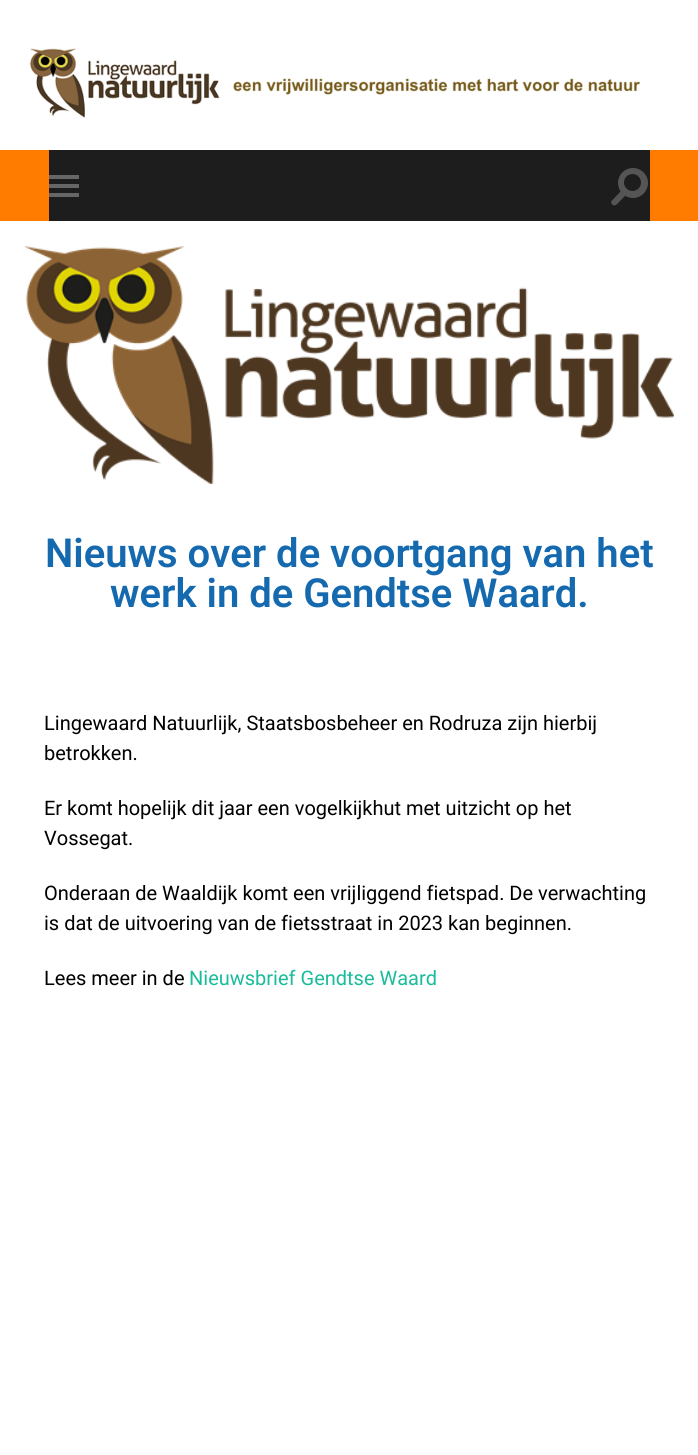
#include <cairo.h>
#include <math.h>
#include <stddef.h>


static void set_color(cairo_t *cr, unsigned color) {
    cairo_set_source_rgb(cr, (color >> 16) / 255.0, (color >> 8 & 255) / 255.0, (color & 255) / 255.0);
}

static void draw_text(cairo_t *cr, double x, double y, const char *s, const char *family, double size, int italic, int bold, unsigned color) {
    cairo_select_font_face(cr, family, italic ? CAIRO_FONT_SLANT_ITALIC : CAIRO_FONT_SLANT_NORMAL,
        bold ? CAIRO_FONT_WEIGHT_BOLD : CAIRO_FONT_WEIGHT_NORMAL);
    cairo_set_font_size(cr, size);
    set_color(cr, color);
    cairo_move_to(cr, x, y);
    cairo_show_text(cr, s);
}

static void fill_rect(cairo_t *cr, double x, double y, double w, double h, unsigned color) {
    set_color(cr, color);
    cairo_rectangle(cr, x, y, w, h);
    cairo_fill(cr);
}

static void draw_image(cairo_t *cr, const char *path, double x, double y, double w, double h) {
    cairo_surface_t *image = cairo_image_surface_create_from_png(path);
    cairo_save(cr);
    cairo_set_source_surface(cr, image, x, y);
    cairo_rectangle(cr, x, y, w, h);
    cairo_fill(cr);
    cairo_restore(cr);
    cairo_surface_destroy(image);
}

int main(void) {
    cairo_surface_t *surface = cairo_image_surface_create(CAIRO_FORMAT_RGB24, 698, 1455);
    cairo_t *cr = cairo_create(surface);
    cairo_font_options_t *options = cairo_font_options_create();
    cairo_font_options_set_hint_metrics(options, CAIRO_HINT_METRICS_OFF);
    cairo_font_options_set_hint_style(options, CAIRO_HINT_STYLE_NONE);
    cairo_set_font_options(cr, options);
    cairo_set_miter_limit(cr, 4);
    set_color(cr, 0xFFFFFF);
    cairo_paint(cr);
    draw_image(cr, "assets/img1.png", 0, 0, 698, 150);
    fill_rect(cr, 0, 150, 698, 71, 0xFF7C00);
    fill_rect(cr, 49, 150, 601, 71, 0x1D1D1D);
    fill_rect(cr, 49, 175, 30, 4, 0x666666);
    fill_rect(cr, 49, 184, 30, 4, 0x666666);
    fill_rect(cr, 49, 193, 30, 4, 0x666666);
    set_color(cr, 0x555555);
    cairo_arc(cr, 633, 183, 15, 0, 2 * M_PI);
    cairo_fill(cr);
    set_color(cr, 0x1D1D1D);
    cairo_arc(cr, 632.5, 182.5, 8.5, 0, 2 * M_PI);
    cairo_fill(cr);
    set_color(cr, 0x555555);
    cairo_new_path(cr);
    cairo_move_to(cr, 612, 200.5);
    cairo_line_to(cr, 622.5, 189.5);
    cairo_line_to(cr, 627, 194);
    cairo_line_to(cr, 620, 201);
    cairo_curve_to(cr, 617.5, 203.5, 614.5, 208, 611.5, 203.5);
    cairo_curve_to(cr, 611, 202.5, 611, 201, 612, 200.5);
    cairo_close_path(cr);
    cairo_fill(cr);
    draw_image(cr, "assets/img2.png", 25, 246, 649, 238);
    draw_text(cr, 45, 567, "Nieuws over de voortgang van het", "Roboto SemiBold", 40, 0, 0, 0x1569AE);
    draw_text(cr, 110, 607, "werk in de Gendtse Waard.", "Roboto SemiBold", 40, 0, 0, 0x1569AE);
    draw_text(cr, 44, 730, "Lingewaard Natuurlijk, Staatsbosbeheer en Rodruza zijn hierbij", "Roboto", 20, 0, 0, 0x000000);
    draw_text(cr, 44, 760, "betrokken.", "Roboto", 20, 0, 0, 0x000000);
    draw_text(cr, 44, 815, "Er komt hopelijk dit jaar een vogelkijkhut met uitzicht op het", "Roboto", 20, 0, 0, 0x000000);
    draw_text(cr, 44, 845, "Vossegat.", "Roboto", 20, 0, 0, 0x000000);
    draw_text(cr, 44, 900, "Onderaan de Waaldijk komt een vrijliggend fietspad. De verwachting", "Roboto", 20, 0, 0, 0x000000);
    draw_text(cr, 44, 930, "is dat de uitvoering van de fietsstraat in 2023 kan beginnen.", "Roboto", 20, 0, 0, 0x000000);
    draw_text(cr, 44, 985, "Lees meer in de", "Roboto", 20, 0, 0, 0x000000);
    draw_text(cr, 189, 985, "Nieuwsbrief Gendtse Waard", "Roboto", 20, 0, 0, 0x1ABC9C);
    cairo_surface_write_to_png(surface, "output.png");
    cairo_font_options_destroy(options);
    cairo_destroy(cr);
    cairo_surface_destroy(surface);
    return 0;
}
